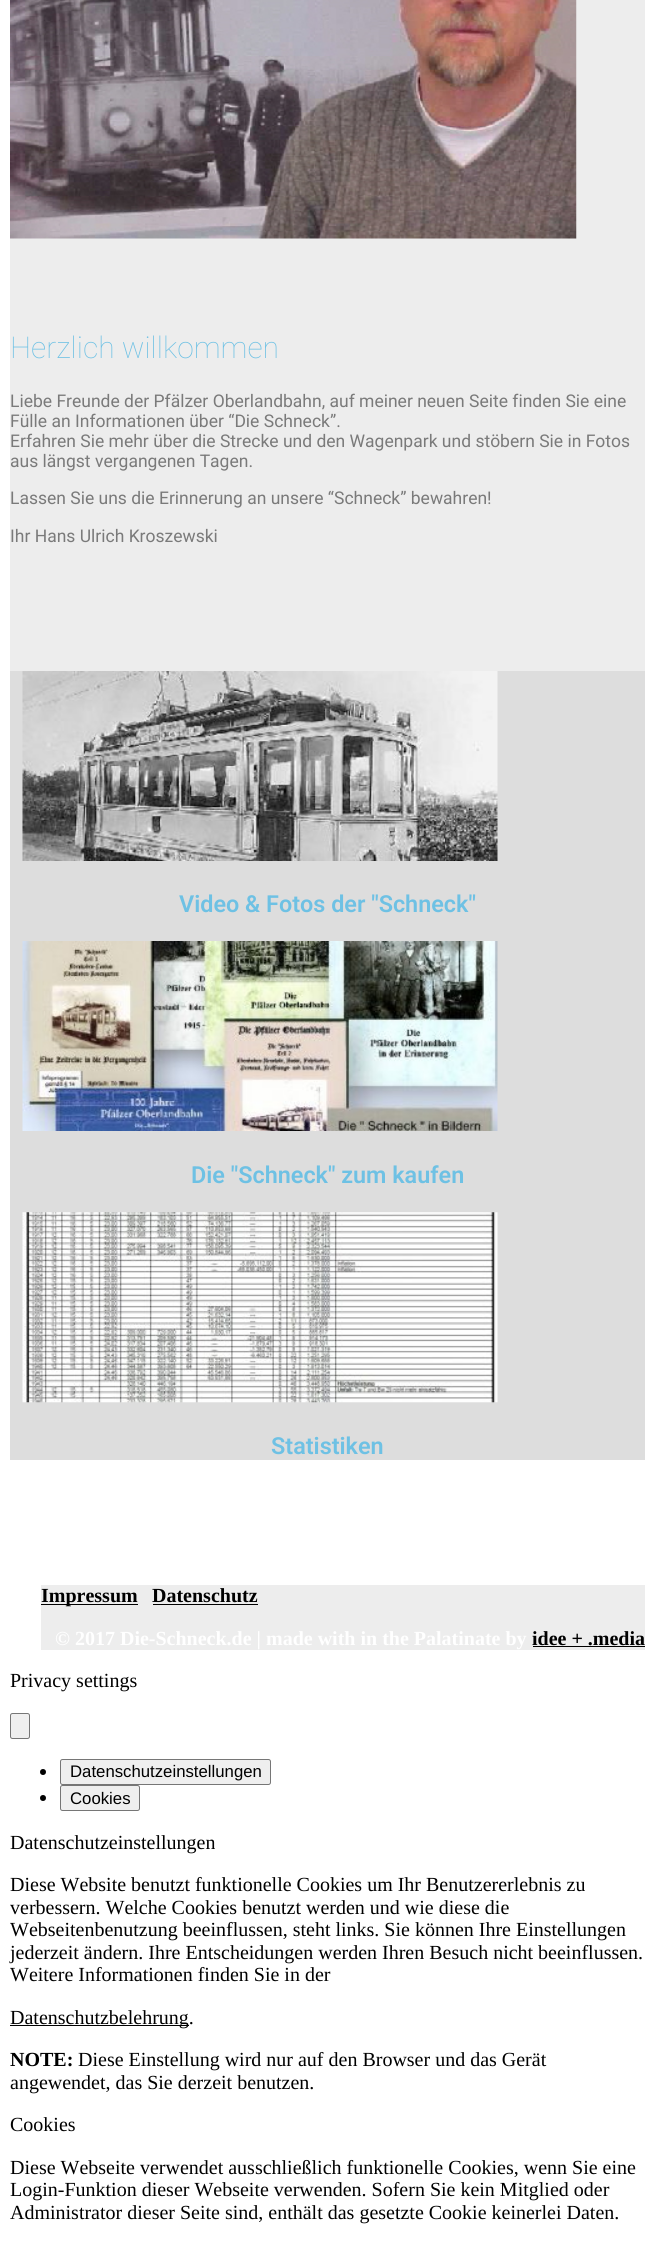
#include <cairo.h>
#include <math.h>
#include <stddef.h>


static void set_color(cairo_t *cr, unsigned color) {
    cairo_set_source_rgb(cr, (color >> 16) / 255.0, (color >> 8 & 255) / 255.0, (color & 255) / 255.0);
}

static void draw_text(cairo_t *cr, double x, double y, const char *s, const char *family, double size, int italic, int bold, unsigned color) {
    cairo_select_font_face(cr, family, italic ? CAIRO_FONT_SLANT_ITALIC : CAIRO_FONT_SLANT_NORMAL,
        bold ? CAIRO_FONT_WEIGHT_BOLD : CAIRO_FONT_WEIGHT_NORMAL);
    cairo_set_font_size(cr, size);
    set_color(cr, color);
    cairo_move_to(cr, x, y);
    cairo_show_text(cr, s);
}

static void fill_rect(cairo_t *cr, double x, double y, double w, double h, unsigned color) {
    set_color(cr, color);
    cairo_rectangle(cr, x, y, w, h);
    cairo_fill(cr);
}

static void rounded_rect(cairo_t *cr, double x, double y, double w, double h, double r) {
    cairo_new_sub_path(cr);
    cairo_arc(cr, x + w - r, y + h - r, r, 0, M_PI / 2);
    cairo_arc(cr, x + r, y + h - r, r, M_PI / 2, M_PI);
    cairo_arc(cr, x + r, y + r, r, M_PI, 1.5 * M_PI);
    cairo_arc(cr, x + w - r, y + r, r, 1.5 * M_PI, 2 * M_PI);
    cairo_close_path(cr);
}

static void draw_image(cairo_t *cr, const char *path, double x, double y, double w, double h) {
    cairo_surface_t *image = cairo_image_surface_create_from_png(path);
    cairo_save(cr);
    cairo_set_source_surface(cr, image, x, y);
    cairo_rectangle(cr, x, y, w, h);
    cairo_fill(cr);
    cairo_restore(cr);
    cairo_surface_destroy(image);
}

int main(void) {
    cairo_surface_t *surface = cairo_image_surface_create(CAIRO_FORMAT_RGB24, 655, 2260);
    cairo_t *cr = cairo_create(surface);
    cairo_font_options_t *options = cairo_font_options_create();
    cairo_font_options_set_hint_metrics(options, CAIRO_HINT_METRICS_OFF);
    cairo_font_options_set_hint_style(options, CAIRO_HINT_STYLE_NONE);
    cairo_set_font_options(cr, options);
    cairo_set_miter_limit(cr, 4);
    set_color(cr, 0xFFFFFF);
    cairo_paint(cr);
    fill_rect(cr, 10, 0, 635, 671, 0xEDEDED);
    draw_image(cr, "assets/img1.png", 10, 0, 567, 239);
    draw_text(cr, 10, 358, "Herzlich willkommen", "Roboto Thin", 30, 0, 0, 0x6EC1E4);
    draw_text(cr, 10, 407, "Liebe Freunde der Pfälzer Oberlandbahn, auf meiner neuen Seite finden Sie eine", "Roboto", 17.5, 0, 0, 0x7A7A7A);
    draw_text(cr, 10, 427, "Fülle an Informationen über “Die Schneck”.", "Roboto", 17.5, 0, 0, 0x7A7A7A);
    draw_text(cr, 10, 447, "Erfahren Sie mehr über die Strecke und den Wagenpark und stöbern Sie in Fotos", "Roboto", 17.5, 0, 0, 0x7A7A7A);
    draw_text(cr, 10, 467, "aus längst vergangenen Tagen.", "Roboto", 17.5, 0, 0, 0x7A7A7A);
    draw_text(cr, 10, 504, "Lassen Sie uns die Erinnerung an unsere “Schneck” bewahren!", "Roboto", 17.5, 0, 0, 0x7A7A7A);
    draw_text(cr, 10, 542, "Ihr Hans Ulrich Kroszewski", "Roboto", 17.5, 0, 0, 0x7A7A7A);
    fill_rect(cr, 10, 671, 635, 789, 0xDDDDDD);
    draw_image(cr, "assets/img2.png", 22, 671, 476, 190);
    draw_text(cr, 179, 912, "Video & Fotos der \"Schneck\"", "Roboto SemiBold", 23.4, 0, 0, 0x6EC1E4);
    draw_image(cr, "assets/img3.png", 22, 941, 476, 190);
    draw_text(cr, 191, 1183, "Die \"Schneck\" zum kaufen", "Roboto SemiBold", 23.4, 0, 0, 0x6EC1E4);
    draw_image(cr, "assets/img4.png", 22, 1212, 476, 191);
    draw_text(cr, 271, 1454, "Statistiken", "Roboto SemiBold", 23.4, 0, 0, 0x6EC1E4);
    fill_rect(cr, 41, 1585, 604, 65, 0xEDEDED);
    fill_rect(cr, 41, 1604, 97, 1, 0x000000);
    draw_text(cr, 41, 1602, "Impressum", "Liberation Serif", 20, 0, 1, 0x000000);
    draw_text(cr, 152, 1602, "Datenschutz", "Liberation Serif", 20, 0, 1, 0x000000);
    fill_rect(cr, 153, 1604, 105, 1, 0x000000);
    draw_text(cr, 55, 1645, "© 2017 Die-Schneck.de | made with in the Palatinate by", "Liberation Serif", 20, 0, 1, 0xFFFFFF);
    draw_text(cr, 532, 1645, "idee + .media", "Liberation Serif", 20, 0, 1, 0x000000);
    fill_rect(cr, 533, 1646, 112, 1, 0x000000);
    draw_text(cr, 10, 1687, "Privacy settings", "Liberation Serif", 20, 0, 0, 0x000000);
    set_color(cr, 0xEFEFEF);
    rounded_rect(cr, 10.5, 1713.5, 19, 25, 2);
    cairo_fill_preserve(cr);
    set_color(cr, 0x767676);
    cairo_set_line_width(cr, 1);
    cairo_stroke(cr);
    set_color(cr, 0x000000);
    cairo_arc(cr, 43, 1772, 3, 0, 2 * M_PI);
    cairo_fill(cr);
    set_color(cr, 0xEFEFEF);
    rounded_rect(cr, 60.5, 1759.5, 210, 25, 2);
    cairo_fill_preserve(cr);
    set_color(cr, 0x767676);
    cairo_stroke(cr);
    draw_text(cr, 70, 1777, "Datenschutzeinstellungen", "Liberation Sans", 16.75, 0, 0, 0x000000);
    cairo_new_path(cr);
    cairo_arc(cr, 43, 1798, 3, 0, 2 * M_PI);
    cairo_fill(cr);
    set_color(cr, 0xEFEFEF);
    rounded_rect(cr, 60.5, 1785.5, 79, 25, 2);
    cairo_fill_preserve(cr);
    set_color(cr, 0x767676);
    cairo_stroke(cr);
    draw_text(cr, 70, 1804, "Cookies", "Liberation Sans", 16.75, 0, 0, 0x000000);
    draw_text(cr, 10, 1849, "Datenschutzeinstellungen", "Liberation Serif", 20, 0, 0, 0x000000);
    draw_text(cr, 10, 1891, "Diese Website benutzt funktionelle Cookies um Ihr Benutzererlebnis zu", "Liberation Serif", 20, 0, 0, 0x000000);
    draw_text(cr, 10, 1914, "verbessern. Welche Cookies benutzt werden und wie diese die", "Liberation Serif", 20, 0, 0, 0x000000);
    draw_text(cr, 10, 1936, "Webseitenbenutzung beeinflussen, steht links. Sie können Ihre Einstellungen", "Liberation Serif", 20, 0, 0, 0x000000);
    draw_text(cr, 10, 1959, "jederzeit ändern. Ihre Entscheidungen werden Ihren Besuch nicht beeinflussen.", "Liberation Serif", 20, 0, 0, 0x000000);
    draw_text(cr, 10, 1981, "Weitere Informationen finden Sie in der", "Liberation Serif", 20, 0, 0, 0x000000);
    fill_rect(cr, 10, 2025, 179, 1, 0x000000);
    draw_text(cr, 10, 2024, "Datenschutzbelehrung.", "Liberation Serif", 20, 0, 0, 0x000000);
    draw_text(cr, 10, 2066, "NOTE:", "Liberation Serif", 20, 0, 1, 0x000000);
    draw_text(cr, 78, 2066, "Diese Einstellung wird nur auf den Browser und das Gerät", "Liberation Serif", 20, 0, 0, 0x000000);
    draw_text(cr, 10, 2089, "angewendet, das Sie derzeit benutzen.", "Liberation Serif", 20, 0, 0, 0x000000);
    draw_text(cr, 10, 2131, "Cookies", "Liberation Serif", 20, 0, 0, 0x000000);
    draw_text(cr, 10, 2174, "Diese Webseite verwendet ausschließlich funktionelle Cookies, wenn Sie eine", "Liberation Serif", 20, 0, 0, 0x000000);
    draw_text(cr, 10, 2196, "Login-Funktion dieser Webseite verwenden. Sofern Sie kein Mitglied oder", "Liberation Serif", 20, 0, 0, 0x000000);
    draw_text(cr, 10, 2219, "Administrator dieser Seite sind, enthält das gesetzte Cookie keinerlei Daten.", "Liberation Serif", 20, 0, 0, 0x000000);
    cairo_surface_write_to_png(surface, "output.png");
    cairo_font_options_destroy(options);
    cairo_destroy(cr);
    cairo_surface_destroy(surface);
    return 0;
}
